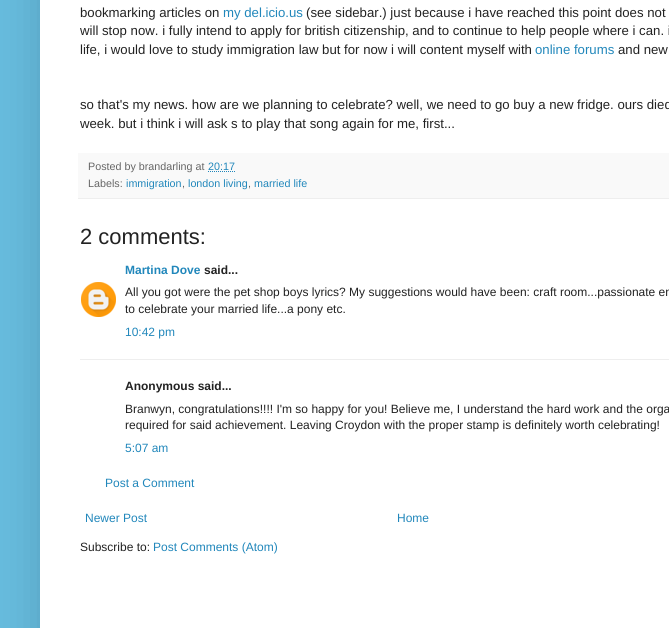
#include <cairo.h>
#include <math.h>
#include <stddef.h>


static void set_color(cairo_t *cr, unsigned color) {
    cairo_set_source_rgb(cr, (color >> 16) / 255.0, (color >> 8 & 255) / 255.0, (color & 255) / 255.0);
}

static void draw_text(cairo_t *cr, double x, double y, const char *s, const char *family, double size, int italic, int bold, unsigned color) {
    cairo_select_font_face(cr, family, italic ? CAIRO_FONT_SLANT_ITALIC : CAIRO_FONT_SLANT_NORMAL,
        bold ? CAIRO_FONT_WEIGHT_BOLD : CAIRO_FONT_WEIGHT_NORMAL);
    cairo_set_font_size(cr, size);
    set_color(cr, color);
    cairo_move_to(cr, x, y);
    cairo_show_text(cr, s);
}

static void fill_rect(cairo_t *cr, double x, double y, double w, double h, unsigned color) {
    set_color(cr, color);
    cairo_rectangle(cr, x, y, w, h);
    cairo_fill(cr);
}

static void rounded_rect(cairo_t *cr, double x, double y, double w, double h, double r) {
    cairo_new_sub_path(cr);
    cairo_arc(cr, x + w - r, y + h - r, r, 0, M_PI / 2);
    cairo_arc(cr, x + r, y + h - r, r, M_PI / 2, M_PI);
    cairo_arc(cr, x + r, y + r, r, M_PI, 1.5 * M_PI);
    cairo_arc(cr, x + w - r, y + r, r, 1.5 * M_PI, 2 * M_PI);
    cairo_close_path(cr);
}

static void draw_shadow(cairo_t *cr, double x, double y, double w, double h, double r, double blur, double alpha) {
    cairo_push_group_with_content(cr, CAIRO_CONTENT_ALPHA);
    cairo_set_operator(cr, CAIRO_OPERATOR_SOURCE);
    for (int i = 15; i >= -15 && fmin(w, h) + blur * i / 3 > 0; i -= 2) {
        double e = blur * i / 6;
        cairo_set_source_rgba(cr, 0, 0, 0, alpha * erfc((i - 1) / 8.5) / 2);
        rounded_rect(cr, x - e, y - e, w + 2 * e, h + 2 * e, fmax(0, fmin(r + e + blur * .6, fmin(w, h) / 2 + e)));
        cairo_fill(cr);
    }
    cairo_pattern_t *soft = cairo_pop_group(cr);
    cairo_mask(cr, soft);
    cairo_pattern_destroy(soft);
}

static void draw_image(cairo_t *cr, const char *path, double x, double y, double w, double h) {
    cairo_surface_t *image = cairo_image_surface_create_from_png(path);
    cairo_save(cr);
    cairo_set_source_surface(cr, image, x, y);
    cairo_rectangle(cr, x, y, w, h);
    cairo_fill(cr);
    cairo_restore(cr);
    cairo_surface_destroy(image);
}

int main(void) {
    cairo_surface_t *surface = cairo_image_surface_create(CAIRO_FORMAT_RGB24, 669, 628);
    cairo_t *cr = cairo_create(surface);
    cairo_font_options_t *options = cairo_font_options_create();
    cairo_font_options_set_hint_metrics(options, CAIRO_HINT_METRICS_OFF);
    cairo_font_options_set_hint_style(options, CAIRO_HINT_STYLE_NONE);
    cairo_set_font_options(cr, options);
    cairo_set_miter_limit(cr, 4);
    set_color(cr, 0x66BBDD);
    cairo_paint(cr);
    set_color(cr, 0x000000);
    draw_shadow(cr, 40, -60, 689, 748, 0, 20, 0.15);
    fill_rect(cr, 40, 0, 629, 628, 0xFFFFFF);
    draw_text(cr, 80, 17, "bookmarking articles on", "Liberation Sans", 13.2, 0, 0, 0x222222);
    draw_text(cr, 223, 17, "my del.icio.us", "Liberation Sans", 13.2, 0, 0, 0x2187BB);
    draw_text(cr, 306, 17, "(see sidebar.) just because i have reached this point does not", "Liberation Sans", 13.2, 0, 0, 0x222222);
    draw_text(cr, 80, 35, "will stop now. i fully intend to apply for british citizenship, and to continue to help people where i can. i", "Liberation Sans", 13.2, 0, 0, 0x222222);
    draw_text(cr, 80, 54, "life, i would love to study immigration law but for now i will content myself with", "Liberation Sans", 13.2, 0, 0, 0x222222);
    draw_text(cr, 535, 54, "online forums", "Liberation Sans", 13.2, 0, 0, 0x2187BB);
    draw_text(cr, 618, 54, "and new", "Liberation Sans", 13.2, 0, 0, 0x222222);
    draw_text(cr, 80, 109, "so that's my news. how are we planning to celebrate? well, we need to go buy a new fridge. ours died", "Liberation Sans", 13.2, 0, 0, 0x222222);
    draw_text(cr, 80, 128, "week. but i think i will ask s to play that song again for me, first...", "Liberation Sans", 13.2, 0, 0, 0x222222);
    fill_rect(cr, 78, 153, 591, 45, 0xF9F9F9);
    fill_rect(cr, 78, 198, 591, 1, 0xEEEEEE);
    draw_text(cr, 88, 170, "Posted by brandarling at", "Liberation Sans", 10.75, 0, 0, 0x666666);
    draw_text(cr, 208, 170, "20:17", "Liberation Sans", 10.75, 0, 0, 0x2187BB);
    cairo_new_path(cr);
    cairo_move_to(cr, 208, 171.5);
    cairo_line_to(cr, 235, 171.5);
    cairo_set_line_width(cr, 1);
    cairo_set_dash(cr, (double[]){1, 1}, 2, 0);
    cairo_stroke(cr);
    draw_text(cr, 88, 187, "Labels:", "Liberation Sans", 10.75, 0, 0, 0x666666);
    draw_text(cr, 126, 187, "immigration", "Liberation Sans", 10.75, 0, 0, 0x2187BB);
    draw_text(cr, 182, 187, ",", "Liberation Sans", 10.75, 0, 0, 0x666666);
    draw_text(cr, 188, 187, "london living", "Liberation Sans", 10.75, 0, 0, 0x2187BB);
    draw_text(cr, 248, 187, ",", "Liberation Sans", 10.75, 0, 0, 0x666666);
    draw_text(cr, 254, 187, "married life", "Liberation Sans", 10.75, 0, 0, 0x2187BB);
    draw_text(cr, 80, 244, "2 comments:", "Liberation Sans", 22, 0, 0, 0x222222);
    draw_text(cr, 125, 274, "Martina Dove", "Liberation Sans", 12, 0, 1, 0x2187BB);
    draw_text(cr, 204, 274, "said...", "Liberation Sans", 12, 0, 1, 0x222222);
    draw_image(cr, "assets/img1.png", 81, 282, 35, 35);
    draw_text(cr, 125, 296, "All you got were the pet shop boys lyrics? My suggestions would have been: craft room...passionate en", "Liberation Sans", 12, 0, 0, 0x222222);
    draw_text(cr, 125, 313, "to celebrate your married life...a pony etc.", "Liberation Sans", 12, 0, 0, 0x222222);
    draw_text(cr, 125, 336, "10:42 pm", "Liberation Sans", 12, 0, 0, 0x2187BB);
    fill_rect(cr, 80, 359, 589, 1, 0xEEEEEE);
    draw_text(cr, 125, 390, "Anonymous said...", "Liberation Sans", 12, 0, 1, 0x222222);
    draw_text(cr, 125, 413, "Branwyn, congratulations!!!! I'm so happy for you! Believe me, I understand the hard work and the orga", "Liberation Sans", 12, 0, 0, 0x222222);
    draw_text(cr, 125, 429, "required for said achievement. Leaving Croydon with the proper stamp is definitely worth celebrating!", "Liberation Sans", 12, 0, 0, 0x222222);
    draw_text(cr, 125, 452, "5:07 am", "Liberation Sans", 12, 0, 0, 0x2187BB);
    draw_text(cr, 105, 487, "Post a Comment", "Liberation Sans", 12, 0, 0, 0x2187BB);
    draw_text(cr, 85, 522, "Newer Post", "Liberation Sans", 12, 0, 0, 0x2187BB);
    draw_text(cr, 397, 522, "Home", "Liberation Sans", 12, 0, 0, 0x2187BB);
    draw_text(cr, 80, 551, "Subscribe to:", "Liberation Sans", 12, 0, 0, 0x222222);
    draw_text(cr, 153, 551, "Post Comments (Atom)", "Liberation Sans", 12, 0, 0, 0x2187BB);
    cairo_surface_write_to_png(surface, "output.png");
    cairo_font_options_destroy(options);
    cairo_destroy(cr);
    cairo_surface_destroy(surface);
    return 0;
}
